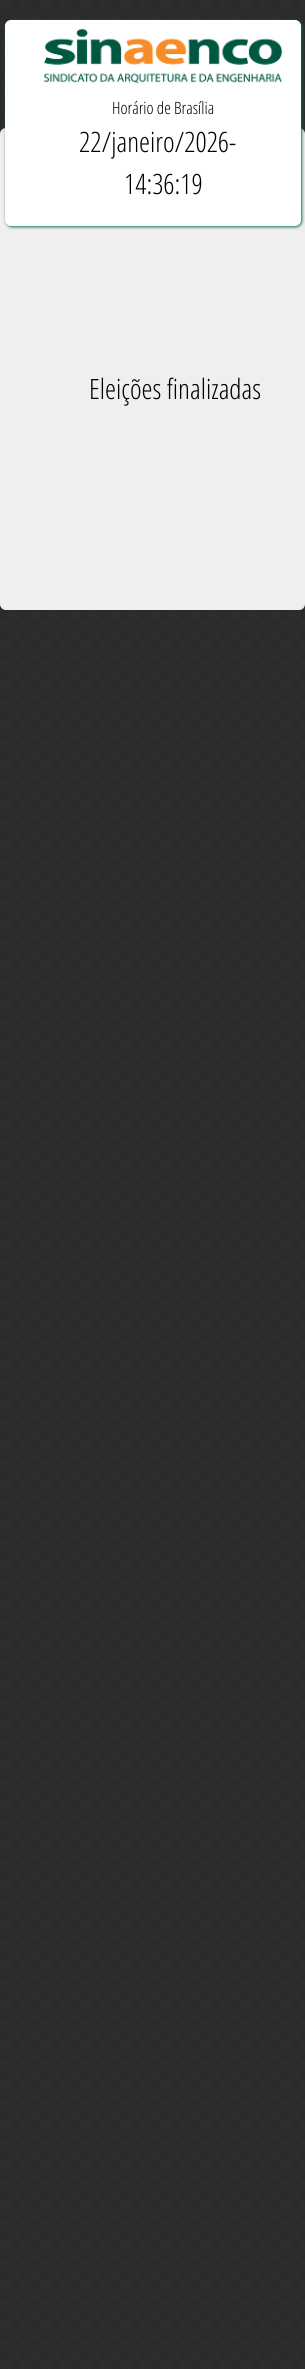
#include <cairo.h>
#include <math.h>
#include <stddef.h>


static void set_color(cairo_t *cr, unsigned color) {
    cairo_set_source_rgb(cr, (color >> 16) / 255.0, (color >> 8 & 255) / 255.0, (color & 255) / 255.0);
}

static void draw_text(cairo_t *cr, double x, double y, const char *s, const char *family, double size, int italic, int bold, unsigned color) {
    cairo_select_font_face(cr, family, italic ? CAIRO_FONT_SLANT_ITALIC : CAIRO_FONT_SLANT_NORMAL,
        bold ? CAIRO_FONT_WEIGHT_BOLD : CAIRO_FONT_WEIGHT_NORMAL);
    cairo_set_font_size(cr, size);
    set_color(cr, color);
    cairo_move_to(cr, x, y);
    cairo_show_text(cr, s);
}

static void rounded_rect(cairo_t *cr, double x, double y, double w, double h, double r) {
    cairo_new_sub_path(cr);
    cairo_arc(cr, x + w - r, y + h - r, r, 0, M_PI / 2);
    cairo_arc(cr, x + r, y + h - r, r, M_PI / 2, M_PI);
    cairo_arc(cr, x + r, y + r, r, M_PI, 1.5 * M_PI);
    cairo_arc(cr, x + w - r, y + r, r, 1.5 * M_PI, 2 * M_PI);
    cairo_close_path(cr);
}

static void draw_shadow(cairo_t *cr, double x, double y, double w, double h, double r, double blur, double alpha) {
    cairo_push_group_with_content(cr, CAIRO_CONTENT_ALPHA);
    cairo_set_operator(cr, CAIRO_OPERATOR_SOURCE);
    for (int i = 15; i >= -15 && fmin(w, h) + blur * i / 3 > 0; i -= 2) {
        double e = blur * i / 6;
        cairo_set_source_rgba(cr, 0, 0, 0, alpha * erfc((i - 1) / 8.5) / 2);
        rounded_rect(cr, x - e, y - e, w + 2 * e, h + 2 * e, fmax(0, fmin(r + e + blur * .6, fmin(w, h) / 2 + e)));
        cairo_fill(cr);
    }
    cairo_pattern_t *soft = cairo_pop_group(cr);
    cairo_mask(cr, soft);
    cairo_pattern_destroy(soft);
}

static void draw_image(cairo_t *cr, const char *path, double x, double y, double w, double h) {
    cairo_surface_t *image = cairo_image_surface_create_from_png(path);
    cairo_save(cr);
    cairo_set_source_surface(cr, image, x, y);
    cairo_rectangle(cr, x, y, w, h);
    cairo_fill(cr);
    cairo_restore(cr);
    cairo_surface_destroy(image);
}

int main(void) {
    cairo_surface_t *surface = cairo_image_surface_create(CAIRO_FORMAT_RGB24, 305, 2369);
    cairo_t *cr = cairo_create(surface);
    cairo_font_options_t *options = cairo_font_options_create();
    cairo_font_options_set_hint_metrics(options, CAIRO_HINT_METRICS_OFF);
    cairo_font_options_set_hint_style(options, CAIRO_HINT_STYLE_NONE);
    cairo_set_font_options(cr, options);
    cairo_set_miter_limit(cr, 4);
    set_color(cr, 0xFFFFFF);
    cairo_paint(cr);
    draw_image(cr, "assets/img1.png", 0, 0, 305, 2369);
    set_color(cr, 0xF1EEEE);
    rounded_rect(cr, 0, 128, 305, 482, 6);
    cairo_fill(cr);
    set_color(cr, 0x076F54);
    draw_shadow(cr, 6, 21, 296, 206, 6, 1.5, 1);
    set_color(cr, 0xFFFFFF);
    rounded_rect(cr, 5.5, 20.5, 295, 205, 5.5);
    cairo_fill_preserve(cr);
    cairo_set_line_width(cr, 1);
    cairo_stroke(cr);
    draw_image(cr, "assets/img2.png", 44, 28, 239, 56);
    draw_text(cr, 112, 114, "Horário de Brasília", "Open Sans Light", 17, 0, 0, 0x000000);
    draw_text(cr, 79, 152, "22/janeiro/2026-", "Open Sans Light", 28, 0, 0, 0x000000);
    draw_text(cr, 124, 194, "14:36:19", "Open Sans Light", 28, 0, 0, 0x000000);
    draw_text(cr, 89, 399, "Eleições finalizadas", "Open Sans Light", 28, 0, 0, 0x000000);
    cairo_surface_write_to_png(surface, "output.png");
    cairo_font_options_destroy(options);
    cairo_destroy(cr);
    cairo_surface_destroy(surface);
    return 0;
}
